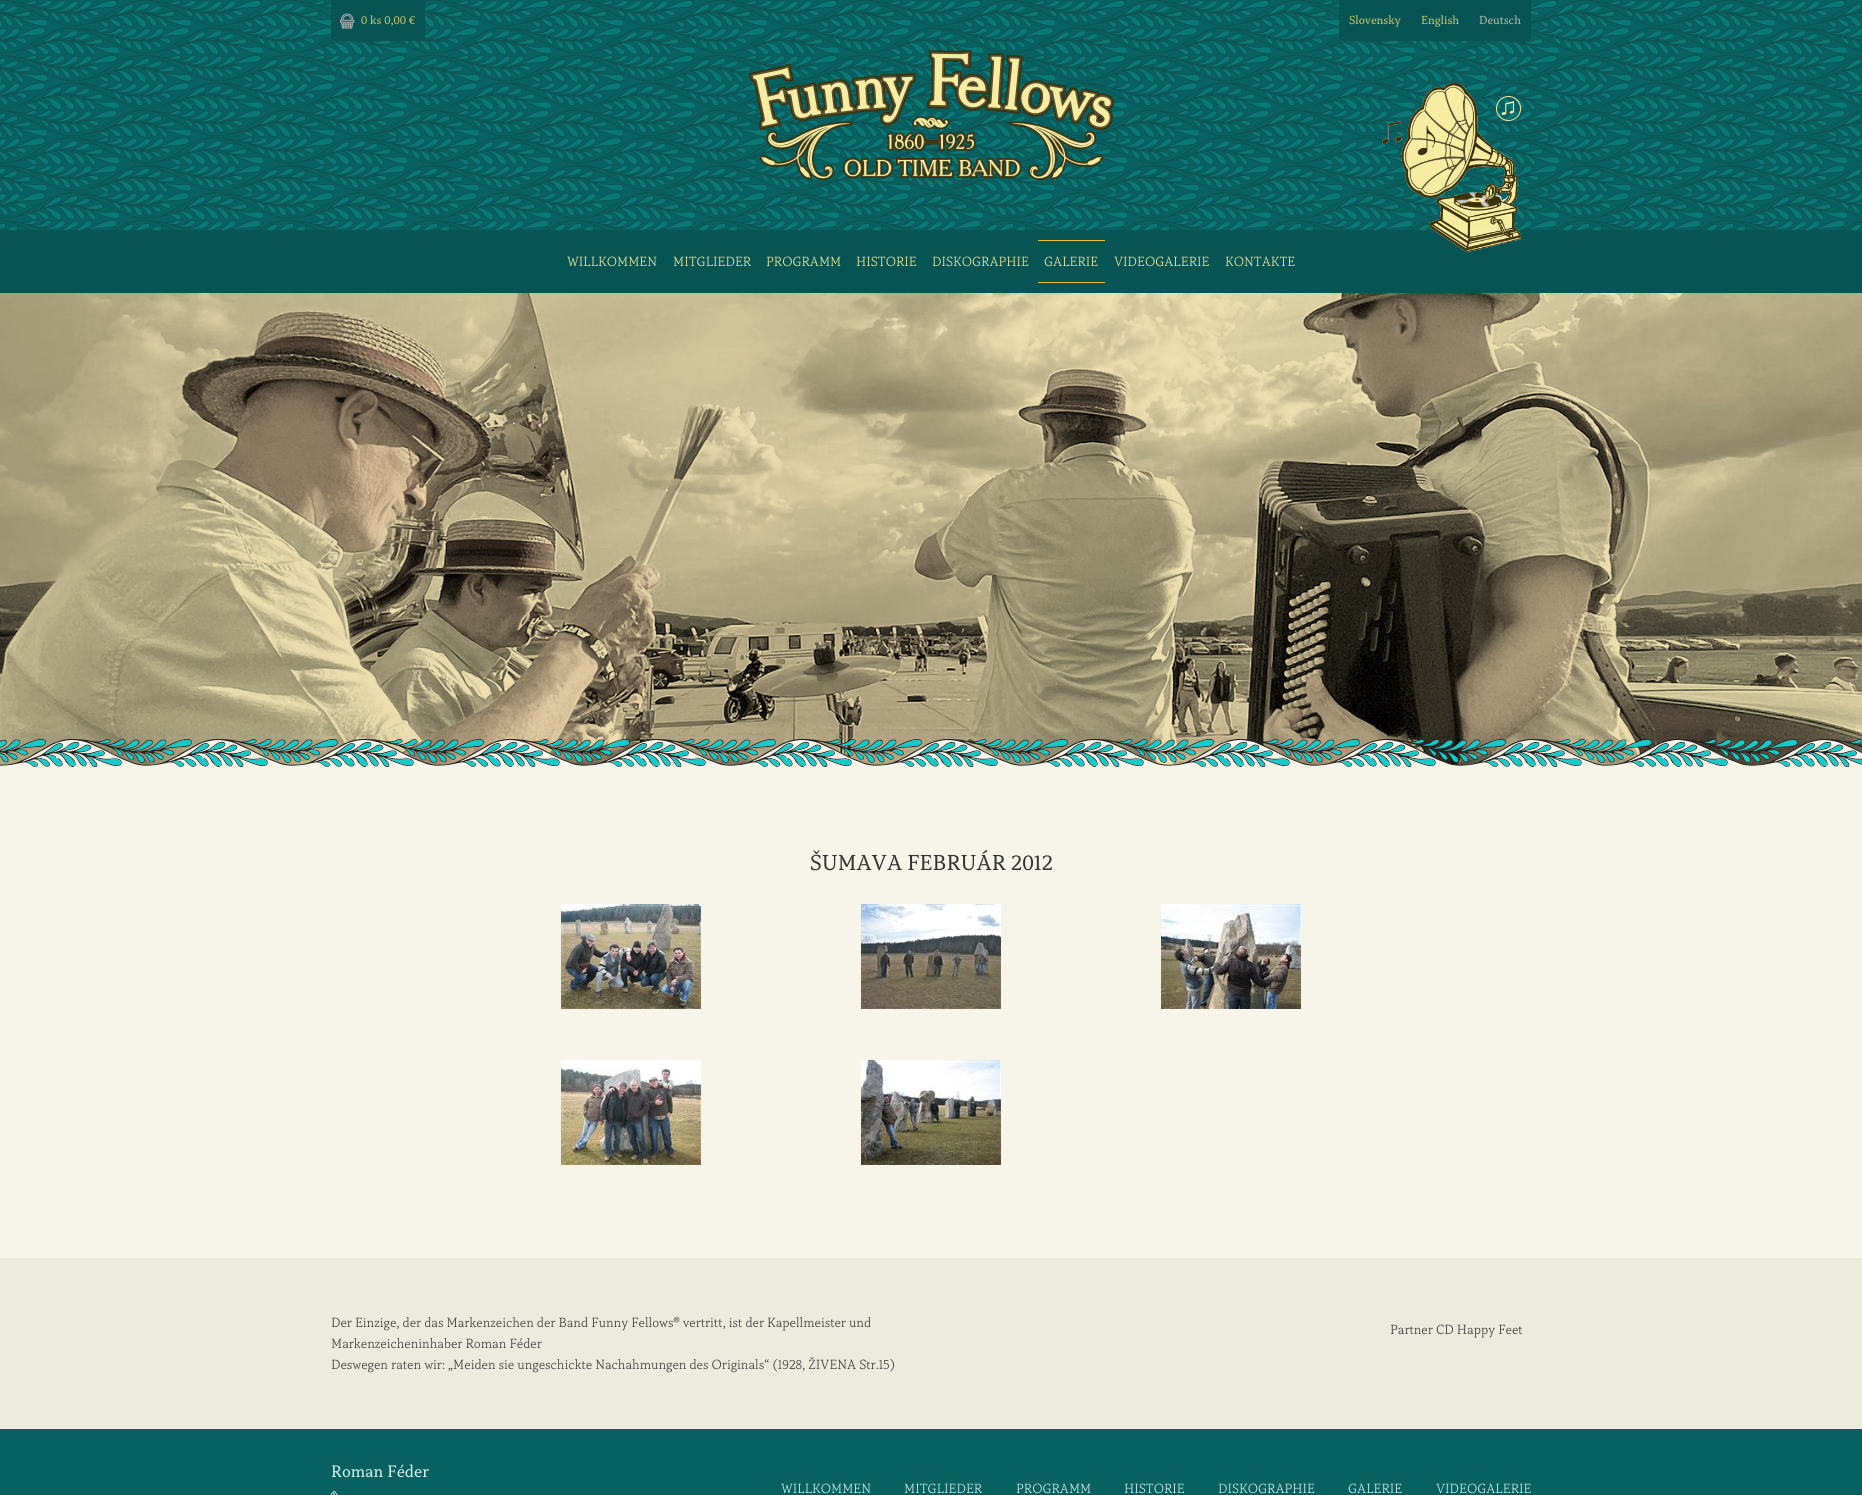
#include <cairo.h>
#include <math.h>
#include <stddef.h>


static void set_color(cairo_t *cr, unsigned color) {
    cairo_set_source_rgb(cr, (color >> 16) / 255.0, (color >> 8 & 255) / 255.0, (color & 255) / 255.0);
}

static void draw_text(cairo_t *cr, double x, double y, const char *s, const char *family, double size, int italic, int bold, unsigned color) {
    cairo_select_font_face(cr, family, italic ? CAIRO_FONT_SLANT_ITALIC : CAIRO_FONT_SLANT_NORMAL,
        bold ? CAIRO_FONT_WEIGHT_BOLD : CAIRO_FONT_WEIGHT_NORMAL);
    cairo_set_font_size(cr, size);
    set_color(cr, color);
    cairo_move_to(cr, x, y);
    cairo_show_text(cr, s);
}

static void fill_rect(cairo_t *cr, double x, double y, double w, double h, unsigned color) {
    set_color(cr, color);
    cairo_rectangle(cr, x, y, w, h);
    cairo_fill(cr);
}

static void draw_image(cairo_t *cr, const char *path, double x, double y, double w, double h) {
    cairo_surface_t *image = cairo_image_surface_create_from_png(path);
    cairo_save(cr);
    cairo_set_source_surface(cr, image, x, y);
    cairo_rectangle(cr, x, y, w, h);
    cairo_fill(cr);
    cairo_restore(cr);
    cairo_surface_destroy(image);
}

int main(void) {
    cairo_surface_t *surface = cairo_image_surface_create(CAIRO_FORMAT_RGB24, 1862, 1495);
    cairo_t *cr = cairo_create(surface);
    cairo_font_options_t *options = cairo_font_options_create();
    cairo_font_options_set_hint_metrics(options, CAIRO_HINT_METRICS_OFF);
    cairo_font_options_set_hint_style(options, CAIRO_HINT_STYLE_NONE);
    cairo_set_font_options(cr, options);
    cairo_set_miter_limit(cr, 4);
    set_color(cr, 0x076161);
    cairo_paint(cr);
    draw_image(cr, "assets/img1.png", 0, 0, 1862, 230);
    set_color(cr, 0x075454);
    cairo_new_path(cr);
    cairo_move_to(cr, 331, 0);
    cairo_line_to(cr, 425, 0);
    cairo_line_to(cr, 425, 38);
    cairo_curve_to(cr, 425, 39.5, 423.5, 41, 422, 41);
    cairo_line_to(cr, 334, 41);
    cairo_curve_to(cr, 332.5, 41, 331, 39.5, 331, 38);
    cairo_close_path(cr);
    cairo_fill(cr);
    draw_image(cr, "assets/img2.png", 340, 13, 15, 16);
    draw_text(cr, 361, 24, "0 ks 0,00 €", "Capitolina", 12.25, 0, 0, 0xCDC76E);
    set_color(cr, 0x075454);
    cairo_new_path(cr);
    cairo_move_to(cr, 1339, 0);
    cairo_line_to(cr, 1531, 0);
    cairo_line_to(cr, 1531, 38);
    cairo_curve_to(cr, 1531, 39.5, 1529.5, 41, 1528, 41);
    cairo_line_to(cr, 1342, 41);
    cairo_curve_to(cr, 1340.5, 41, 1339, 39.5, 1339, 38);
    cairo_close_path(cr);
    cairo_fill(cr);
    draw_text(cr, 1349, 24, "Slovensky", "Capitolina", 12.25, 0, 0, 0xCDC76E);
    draw_text(cr, 1421, 24, "English", "Capitolina", 12.25, 0, 0, 0xCDC76E);
    draw_text(cr, 1479, 24, "Deutsch", "Capitolina", 12.25, 0, 0, 0xB9B8A7);
    draw_image(cr, "assets/img3.png", 749, 50, 365, 130);
    fill_rect(cr, 0, 230, 1862, 63, 0x075454);
    draw_image(cr, "assets/img4.png", 1382, 83, 140, 170);
    draw_image(cr, "assets/img5.png", 1496, 96, 25, 25);
    draw_text(cr, 567, 266, "WILLKOMMEN", "Capitolina Light", 14, 0, 0, 0xF5F0A3);
    draw_text(cr, 673, 266, "MITGLIEDER", "Capitolina Light", 14, 0, 0, 0xF5F0A3);
    draw_text(cr, 766, 266, "PROGRAMM", "Capitolina Light", 14, 0, 0, 0xF5F0A3);
    draw_text(cr, 856, 266, "HISTORIE", "Capitolina Light", 14, 0, 0, 0xF5F0A3);
    draw_text(cr, 932, 266, "DISKOGRAPHIE", "Capitolina Light", 14, 0, 0, 0xF5F0A3);
    fill_rect(cr, 1038, 240, 67, 1, 0xF2BE2D);
    fill_rect(cr, 1038, 282, 67, 1, 0xF2BE2D);
    draw_text(cr, 1044, 266, "GALERIE", "Capitolina Light", 14, 0, 0, 0xF5F0A3);
    draw_text(cr, 1114, 266, "VIDEOGALERIE", "Capitolina Light", 14, 0, 0, 0xF5F0A3);
    draw_text(cr, 1225, 266, "KONTAKTE", "Capitolina Light", 14, 0, 0, 0xF5F0A3);
    draw_image(cr, "assets/img6.png", 0, 293, 1862, 473);
    draw_image(cr, "assets/img7.png", 0, 739, 1862, 28);
    fill_rect(cr, 0, 767, 1862, 491, 0xF7F5E9);
    draw_text(cr, 810, 870, "ŠUMAVA FEBRUÁR 2012", "Capitolina", 22.75, 0, 0, 0x333333);
    draw_image(cr, "assets/img8.png", 561, 904, 140, 105);
    draw_image(cr, "assets/img9.png", 861, 904, 140, 105);
    draw_image(cr, "assets/img10.png", 1161, 904, 140, 105);
    draw_image(cr, "assets/img11.png", 561, 1060, 140, 105);
    draw_image(cr, "assets/img12.png", 861, 1060, 140, 105);
    fill_rect(cr, 0, 1258, 1862, 171, 0xEDEBDE);
    draw_text(cr, 331, 1327, "Der Einzige, der das Markenzeichen der Band Funny Fellows® vertritt, ist der Kapellmeister und", "Capitolina Light", 14, 0, 0, 0x333333);
    draw_text(cr, 331, 1348, "Markenzeicheninhaber Roman Féder", "Capitolina Light", 14, 0, 0, 0x333333);
    draw_text(cr, 331, 1369, "Deswegen raten wir: „Meiden sie ungeschickte Nachahmungen des Originals“ (1928, ŽIVENA Str.15)", "Capitolina Light", 14, 0, 0, 0x333333);
    draw_text(cr, 1390, 1334, "Partner CD Happy Feet", "Capitolina Light", 14, 0, 0, 0x333333);
    draw_text(cr, 331, 1477, "Roman Féder", "Capitolina", 17.5, 0, 0, 0xD9EFEF);
    draw_image(cr, "assets/img13.png", 331, 1491, 7, 4);
    draw_text(cr, 781, 1493, "WILLKOMMEN", "Capitolina Light", 14, 0, 0, 0xD9EFEF);
    draw_text(cr, 904, 1493, "MITGLIEDER", "Capitolina Light", 14, 0, 0, 0xD9EFEF);
    draw_text(cr, 1016, 1493, "PROGRAMM", "Capitolina Light", 14, 0, 0, 0xD9EFEF);
    draw_text(cr, 1124, 1493, "HISTORIE", "Capitolina Light", 14, 0, 0, 0xD9EFEF);
    draw_text(cr, 1218, 1493, "DISKOGRAPHIE", "Capitolina Light", 14, 0, 0, 0xD9EFEF);
    draw_text(cr, 1348, 1493, "GALERIE", "Capitolina Light", 14, 0, 0, 0xD9EFEF);
    draw_text(cr, 1436, 1493, "VIDEOGALERIE", "Capitolina Light", 14, 0, 0, 0xD9EFEF);
    cairo_surface_write_to_png(surface, "output.png");
    cairo_font_options_destroy(options);
    cairo_destroy(cr);
    cairo_surface_destroy(surface);
    return 0;
}
